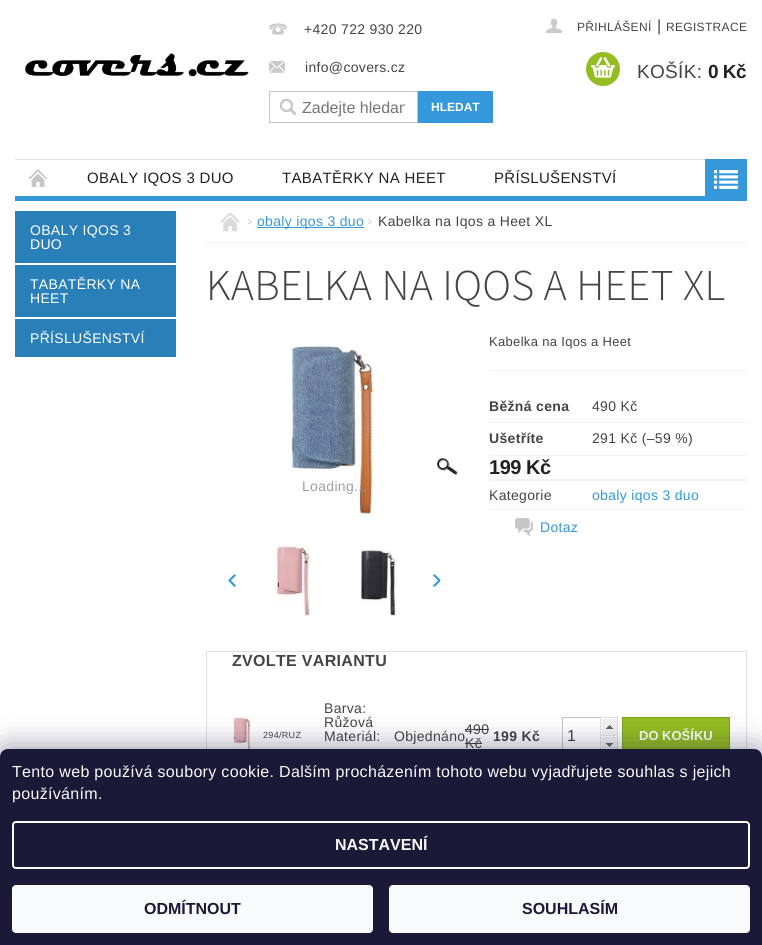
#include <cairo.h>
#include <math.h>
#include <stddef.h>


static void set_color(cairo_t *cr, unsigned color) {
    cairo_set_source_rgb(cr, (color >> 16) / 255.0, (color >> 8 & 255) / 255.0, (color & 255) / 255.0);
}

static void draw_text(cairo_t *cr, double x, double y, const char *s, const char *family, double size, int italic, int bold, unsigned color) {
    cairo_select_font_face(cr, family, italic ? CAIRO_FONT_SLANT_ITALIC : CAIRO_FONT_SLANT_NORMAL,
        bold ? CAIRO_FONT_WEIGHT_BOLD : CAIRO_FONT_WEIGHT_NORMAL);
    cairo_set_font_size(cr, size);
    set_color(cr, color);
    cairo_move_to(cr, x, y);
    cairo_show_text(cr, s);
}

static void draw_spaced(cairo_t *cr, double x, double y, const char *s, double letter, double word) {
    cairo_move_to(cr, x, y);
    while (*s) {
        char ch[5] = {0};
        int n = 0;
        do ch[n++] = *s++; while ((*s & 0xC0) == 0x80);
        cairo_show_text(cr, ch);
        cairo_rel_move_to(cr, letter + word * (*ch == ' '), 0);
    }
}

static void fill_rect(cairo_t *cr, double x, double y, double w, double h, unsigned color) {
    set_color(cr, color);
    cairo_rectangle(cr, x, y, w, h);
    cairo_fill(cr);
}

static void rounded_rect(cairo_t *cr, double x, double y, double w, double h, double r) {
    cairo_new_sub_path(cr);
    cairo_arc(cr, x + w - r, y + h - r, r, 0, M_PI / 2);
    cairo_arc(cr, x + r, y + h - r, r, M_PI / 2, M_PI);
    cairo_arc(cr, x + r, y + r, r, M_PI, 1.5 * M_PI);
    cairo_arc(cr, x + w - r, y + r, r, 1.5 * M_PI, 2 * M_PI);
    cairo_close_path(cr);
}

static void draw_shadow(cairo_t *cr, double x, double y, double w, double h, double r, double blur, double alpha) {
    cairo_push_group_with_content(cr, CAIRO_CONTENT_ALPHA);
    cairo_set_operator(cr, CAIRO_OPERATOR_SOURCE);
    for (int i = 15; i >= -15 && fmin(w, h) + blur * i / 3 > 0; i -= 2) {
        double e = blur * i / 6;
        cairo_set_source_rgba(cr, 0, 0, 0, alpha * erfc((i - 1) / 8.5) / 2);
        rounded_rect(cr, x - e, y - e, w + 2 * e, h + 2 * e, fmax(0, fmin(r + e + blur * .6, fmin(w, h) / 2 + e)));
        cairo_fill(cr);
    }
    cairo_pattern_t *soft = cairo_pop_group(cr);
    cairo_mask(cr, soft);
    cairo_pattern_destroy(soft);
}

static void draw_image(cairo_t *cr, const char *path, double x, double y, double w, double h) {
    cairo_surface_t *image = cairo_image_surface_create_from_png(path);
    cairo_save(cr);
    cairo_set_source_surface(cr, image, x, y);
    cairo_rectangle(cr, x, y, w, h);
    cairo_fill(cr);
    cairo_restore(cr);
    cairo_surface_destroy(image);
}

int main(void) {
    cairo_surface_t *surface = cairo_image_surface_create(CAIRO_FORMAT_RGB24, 762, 945);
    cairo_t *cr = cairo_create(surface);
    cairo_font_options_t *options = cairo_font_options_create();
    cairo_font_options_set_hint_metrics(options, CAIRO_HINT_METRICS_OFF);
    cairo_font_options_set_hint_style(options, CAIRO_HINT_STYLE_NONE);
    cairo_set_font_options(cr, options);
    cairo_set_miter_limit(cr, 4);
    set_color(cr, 0xFFFFFF);
    cairo_paint(cr);
    fill_rect(cr, 15, 196, 690, 5, 0x3498DB);
    draw_image(cr, "assets/img1.png", 25, 53, 224, 24);
    draw_image(cr, "assets/img2.png", 269, 23, 18, 12);
    cairo_select_font_face(cr, "Liberation Sans", CAIRO_FONT_SLANT_NORMAL, CAIRO_FONT_WEIGHT_NORMAL);
    cairo_set_font_size(cr, 14);
    set_color(cr, 0x444444);
    draw_spaced(cr, 304, 34, "+420 722 930 220", 0.32, 0);
    draw_image(cr, "assets/img3.png", 269, 60, 16, 13);
    draw_spaced(cr, 305, 72, "info@covers.cz", 0.32, 0);
    draw_image(cr, "assets/img4.png", 280, 99, 16, 16);
    cairo_rectangle(cr, 269.5, 91.5, 148, 31);
    set_color(cr, 0xC6C6C6);
    cairo_set_line_width(cr, 1);
    cairo_stroke(cr);
    cairo_save(cr);
    cairo_rectangle(cr, 302, 98, 103, 19);
    cairo_clip(cr);
    draw_text(cr, 302, 113, "Zadejte hledan", "Liberation Sans", 16, 0, 0, 0x757575);
    cairo_restore(cr);
    fill_rect(cr, 418, 91, 75, 32, 0x3498DB);
    draw_text(cr, 431, 111, "HLEDAT", "Liberation Sans", 12, 0, 1, 0xFFFFFF);
    draw_image(cr, "assets/img5.png", 546, 18, 16, 15);
    cairo_select_font_face(cr, "Liberation Sans", CAIRO_FONT_SLANT_NORMAL, CAIRO_FONT_WEIGHT_NORMAL);
    set_color(cr, 0x444444);
    draw_spaced(cr, 577, 31, "PŘIHLÁŠENÍ", 0.32, 0);
    cairo_set_font_size(cr, 16);
    draw_spaced(cr, 657, 31, "|", 0.32, 0);
    cairo_set_font_size(cr, 12);
    draw_spaced(cr, 666, 31, "REGISTRACE", 0.32, 0);
    set_color(cr, 0x94BD23);
    cairo_new_path(cr);
    cairo_arc(cr, 603, 69, 17, 0, 2 * M_PI);
    cairo_fill(cr);
    draw_image(cr, "assets/img6.png", 591, 57, 24, 21);
    cairo_set_font_size(cr, 19);
    set_color(cr, 0x444444);
    draw_spaced(cr, 637, 78, "KOŠÍK:", 0.32, 0);
    cairo_select_font_face(cr, "Liberation Sans", CAIRO_FONT_SLANT_NORMAL, CAIRO_FONT_WEIGHT_BOLD);
    set_color(cr, 0x222222);
    draw_spaced(cr, 708, 78, "0 Kč", -0.5, 0);
    fill_rect(cr, 15, 159, 690, 1, 0xE0E0E0);
    draw_image(cr, "assets/img7.png", 29, 169, 18, 18);
    cairo_select_font_face(cr, "Liberation Sans", CAIRO_FONT_SLANT_NORMAL, CAIRO_FONT_WEIGHT_NORMAL);
    cairo_set_font_size(cr, 15);
    set_color(cr, 0x222222);
    draw_spaced(cr, 87, 183, "OBALY IQOS 3 DUO", 0.32, 0);
    draw_spaced(cr, 282, 183, "TABATĚRKY NA HEET", 0.32, 0);
    draw_spaced(cr, 494, 183, "PŘÍSLUŠENSTVÍ", 0.32, 0);
    fill_rect(cr, 705, 159, 42, 42, 0x3498DB);
    draw_image(cr, "assets/img8.png", 714, 170, 24, 19);
    fill_rect(cr, 15, 211, 161, 52, 0x2980B9);
    cairo_set_font_size(cr, 14);
    set_color(cr, 0xFFFFFF);
    draw_spaced(cr, 30, 235, "OBALY IQOS 3", 0.32, 0);
    draw_spaced(cr, 30, 249, "DUO", 0.32, 0);
    fill_rect(cr, 15, 265, 161, 52, 0x2980B9);
    set_color(cr, 0xFFFFFF);
    draw_spaced(cr, 30, 289, "TABATĚRKY NA", 0.32, 0);
    draw_spaced(cr, 30, 303, "HEET", 0.32, 0);
    fill_rect(cr, 15, 319, 161, 38, 0x2980B9);
    set_color(cr, 0xFFFFFF);
    draw_spaced(cr, 30, 343, "PŘÍSLUŠENSTVÍ", 0.32, 0);
    fill_rect(cr, 206, 242, 541, 1, 0xF2F2F2);
    draw_image(cr, "assets/img9.png", 220, 213, 20, 19);
    draw_image(cr, "assets/img10.png", 248, 219, 4, 5);
    fill_rect(cr, 257, 227, 107, 1, 0x3498DB);
    draw_spaced(cr, 257, 226, "obaly iqos 3 duo", 0.32, 0);
    draw_image(cr, "assets/img10.png", 368, 219, 4, 5);
    set_color(cr, 0x444444);
    draw_spaced(cr, 378, 226, "Kabelka na Iqos a Heet XL", 0.32, 0);
    cairo_select_font_face(cr, "Source Sans 3 Light", CAIRO_FONT_SLANT_NORMAL, CAIRO_FONT_WEIGHT_NORMAL);
    cairo_set_font_size(cr, 44);
    draw_spaced(cr, 206, 300, "KABELKA NA IQOS A HEET XL", 0.32, 0);
    draw_image(cr, "assets/img11.png", 437, 458, 21, 18);
    draw_image(cr, "assets/img12.png", 291, 345, 85, 171);
    cairo_select_font_face(cr, "Liberation Sans", CAIRO_FONT_SLANT_NORMAL, CAIRO_FONT_WEIGHT_NORMAL);
    cairo_set_font_size(cr, 14);
    set_color(cr, 0xA09F9F);
    draw_spaced(cr, 302, 491, "Loading...", 0.32, 0);
    fill_rect(cr, 228, 574, 8, 13, 0x3498DB);
    draw_image(cr, "assets/img13.png", 228, 574, 8, 13);
    draw_image(cr, "assets/img14.png", 274, 543, 37, 73);
    draw_image(cr, "assets/img15.png", 360, 549, 37, 67);
    fill_rect(cr, 433, 574, 8, 13, 0x3498DB);
    draw_image(cr, "assets/img16.png", 433, 574, 8, 13);
    fill_rect(cr, 489, 370, 258, 1, 0xF2F2F2);
    cairo_set_font_size(cr, 13);
    set_color(cr, 0x444444);
    draw_spaced(cr, 489, 346, "Kabelka na Iqos a Heet", 0.32, 0);
    fill_rect(cr, 489, 422, 259, 1, 0xF2F2F2);
    cairo_select_font_face(cr, "Liberation Sans", CAIRO_FONT_SLANT_NORMAL, CAIRO_FONT_WEIGHT_BOLD);
    cairo_set_font_size(cr, 14);
    set_color(cr, 0x444444);
    draw_spaced(cr, 489, 411, "Běžná cena", 0.32, 0);
    cairo_select_font_face(cr, "Liberation Sans", CAIRO_FONT_SLANT_NORMAL, CAIRO_FONT_WEIGHT_NORMAL);
    draw_spaced(cr, 592, 411, "490 Kč", 0.32, 0);
    fill_rect(cr, 489, 455, 259, 1, 0xF2F2F2);
    cairo_select_font_face(cr, "Liberation Sans", CAIRO_FONT_SLANT_NORMAL, CAIRO_FONT_WEIGHT_BOLD);
    set_color(cr, 0x444444);
    draw_spaced(cr, 489, 443, "Ušetříte", 0.32, 0);
    cairo_select_font_face(cr, "Liberation Sans", CAIRO_FONT_SLANT_NORMAL, CAIRO_FONT_WEIGHT_NORMAL);
    draw_spaced(cr, 592, 443, "291 Kč (–59 %)", 0.32, 0);
    fill_rect(cr, 489, 479, 259, 2, 0xF2F2F2);
    cairo_select_font_face(cr, "Liberation Sans", CAIRO_FONT_SLANT_NORMAL, CAIRO_FONT_WEIGHT_BOLD);
    cairo_set_font_size(cr, 20);
    set_color(cr, 0x222222);
    draw_spaced(cr, 489, 474, "199 Kč", -0.5, 0);
    fill_rect(cr, 489, 509, 259, 1, 0xF2F2F2);
    cairo_select_font_face(cr, "Liberation Sans", CAIRO_FONT_SLANT_NORMAL, CAIRO_FONT_WEIGHT_NORMAL);
    cairo_set_font_size(cr, 14);
    set_color(cr, 0x444444);
    draw_spaced(cr, 489, 500, "Kategorie", 0.32, 0);
    set_color(cr, 0x3498DB);
    draw_spaced(cr, 592, 500, "obaly iqos 3 duo", 0.32, 0);
    draw_image(cr, "assets/img17.png", 515, 518, 18, 19);
    draw_spaced(cr, 540, 532, "Dotaz", 0.32, 0);
    cairo_rectangle(cr, 206.5, 651.5, 540, 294);
    set_color(cr, 0xE0E0E0);
    cairo_stroke(cr);
    cairo_select_font_face(cr, "Liberation Sans", CAIRO_FONT_SLANT_NORMAL, CAIRO_FONT_WEIGHT_BOLD);
    cairo_set_font_size(cr, 16);
    set_color(cr, 0x444444);
    draw_spaced(cr, 232, 666, "ZVOLTE VARIANTU", 0.32, 0);
    draw_image(cr, "assets/img18.png", 232, 716, 19, 33);
    cairo_select_font_face(cr, "Liberation Sans", CAIRO_FONT_SLANT_NORMAL, CAIRO_FONT_WEIGHT_NORMAL);
    cairo_set_font_size(cr, 9);
    draw_spaced(cr, 263, 738, "294/RUZ", 0.32, 0);
    cairo_set_font_size(cr, 14);
    draw_spaced(cr, 324, 713, "Barva:", 0.32, 0);
    draw_spaced(cr, 324, 727, "Růžová", 0.32, 0);
    draw_spaced(cr, 324, 741, "Materiál:", 0.32, 0);
    draw_spaced(cr, 394, 741, "Objednáno", 0.32, 0);
    draw_spaced(cr, 465, 734, "490", 0.32, 0);
    fill_rect(cr, 465, 729, 24, 1, 0x444444);
    draw_spaced(cr, 465, 748, "Kč", 0.32, 0);
    fill_rect(cr, 465, 743, 17, 1, 0x444444);
    cairo_select_font_face(cr, "Liberation Sans", CAIRO_FONT_SLANT_NORMAL, CAIRO_FONT_WEIGHT_BOLD);
    draw_spaced(cr, 493, 741, "199 Kč", 0.32, 0);
    cairo_rectangle(cr, 562.5, 717.5, 55, 36);
    set_color(cr, 0xC6C6C6);
    cairo_stroke(cr);
    draw_text(cr, 567, 741, "1", "Liberation Sans", 16, 0, 0, 0x444444);
    draw_image(cr, "assets/img19.png", 600, 717, 18, 18);
    draw_image(cr, "assets/img20.png", 600, 735, 18, 14);
    fill_rect(cr, 623, 718, 106, 31, 0x94BD23);
    cairo_rectangle(cr, 622.5, 717.5, 107, 36);
    set_color(cr, 0x7C9E1E);
    cairo_stroke(cr);
    draw_text(cr, 639, 740, "DO KOŠÍKU", "Liberation Sans", 13, 0, 1, 0xFFFFFF);
    set_color(cr, 0x1B1939);
    draw_shadow(cr, 0, 749, 762, 196, 8, 15, 0.5);
    set_color(cr, 0x1A1937);
    cairo_new_path(cr);
    cairo_move_to(cr, 8, 749);
    cairo_line_to(cr, 754, 749);
    cairo_curve_to(cr, 758.5, 749, 762, 752.5, 762, 757);
    cairo_line_to(cr, 762, 945);
    cairo_line_to(cr, 0, 945);
    cairo_line_to(cr, 0, 757);
    cairo_curve_to(cr, 0, 752.5, 3.5, 749, 8, 749);
    cairo_close_path(cr);
    cairo_fill(cr);
    cairo_select_font_face(cr, "Liberation Sans", CAIRO_FONT_SLANT_NORMAL, CAIRO_FONT_WEIGHT_NORMAL);
    cairo_set_font_size(cr, 16);
    set_color(cr, 0xF8FAFB);
    draw_spaced(cr, 12, 777, "Tento web používá soubory cookie. Dalším procházením tohoto webu vyjadřujete souhlas s jejich", 0.32, 0);
    draw_spaced(cr, 12, 799, "používáním.", 0.32, 0);
    rounded_rect(cr, 13, 822, 736, 46, 3);
    cairo_set_line_width(cr, 2);
    cairo_stroke(cr);
    draw_text(cr, 335, 850, "NASTAVENÍ", "Liberation Sans", 16, 0, 1, 0xF8FAFB);
    rounded_rect(cr, 12, 885, 361, 48, 4);
    cairo_fill(cr);
    draw_text(cr, 144, 914, "ODMÍTNOUT", "Liberation Sans", 16, 0, 1, 0x1A1937);
    set_color(cr, 0xF8FAFB);
    rounded_rect(cr, 389, 885, 361, 48, 4);
    cairo_fill(cr);
    draw_text(cr, 522, 914, "SOUHLASÍM", "Liberation Sans", 16, 0, 1, 0x1A1937);
    cairo_surface_write_to_png(surface, "output.png");
    cairo_font_options_destroy(options);
    cairo_destroy(cr);
    cairo_surface_destroy(surface);
    return 0;
}
